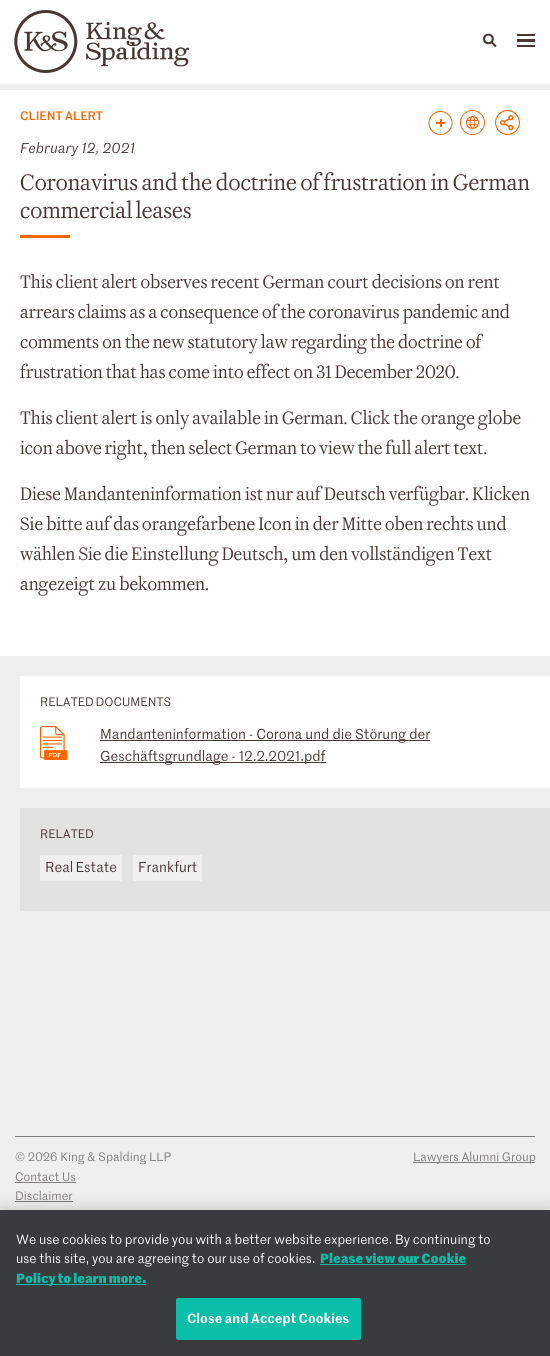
#include <cairo.h>
#include <math.h>
#include <stddef.h>


static void set_color(cairo_t *cr, unsigned color) {
    cairo_set_source_rgb(cr, (color >> 16) / 255.0, (color >> 8 & 255) / 255.0, (color & 255) / 255.0);
}

static void draw_text(cairo_t *cr, double x, double y, const char *s, const char *family, double size, int italic, int bold, unsigned color) {
    cairo_select_font_face(cr, family, italic ? CAIRO_FONT_SLANT_ITALIC : CAIRO_FONT_SLANT_NORMAL,
        bold ? CAIRO_FONT_WEIGHT_BOLD : CAIRO_FONT_WEIGHT_NORMAL);
    cairo_set_font_size(cr, size);
    set_color(cr, color);
    cairo_move_to(cr, x, y);
    cairo_show_text(cr, s);
}

static void draw_spaced(cairo_t *cr, double x, double y, const char *s, double letter, double word) {
    cairo_move_to(cr, x, y);
    while (*s) {
        char ch[5] = {0};
        int n = 0;
        do ch[n++] = *s++; while ((*s & 0xC0) == 0x80);
        cairo_show_text(cr, ch);
        cairo_rel_move_to(cr, letter + word * (*ch == ' '), 0);
    }
}

static void fill_rect(cairo_t *cr, double x, double y, double w, double h, unsigned color) {
    set_color(cr, color);
    cairo_rectangle(cr, x, y, w, h);
    cairo_fill(cr);
}

static void rounded_rect(cairo_t *cr, double x, double y, double w, double h, double r) {
    cairo_new_sub_path(cr);
    cairo_arc(cr, x + w - r, y + h - r, r, 0, M_PI / 2);
    cairo_arc(cr, x + r, y + h - r, r, M_PI / 2, M_PI);
    cairo_arc(cr, x + r, y + r, r, M_PI, 1.5 * M_PI);
    cairo_arc(cr, x + w - r, y + r, r, 1.5 * M_PI, 2 * M_PI);
    cairo_close_path(cr);
}

static void draw_shadow(cairo_t *cr, double x, double y, double w, double h, double r, double blur, double alpha) {
    cairo_push_group_with_content(cr, CAIRO_CONTENT_ALPHA);
    cairo_set_operator(cr, CAIRO_OPERATOR_SOURCE);
    for (int i = 15; i >= -15 && fmin(w, h) + blur * i / 3 > 0; i -= 2) {
        double e = blur * i / 6;
        cairo_set_source_rgba(cr, 0, 0, 0, alpha * erfc((i - 1) / 8.5) / 2);
        rounded_rect(cr, x - e, y - e, w + 2 * e, h + 2 * e, fmax(0, fmin(r + e + blur * .6, fmin(w, h) / 2 + e)));
        cairo_fill(cr);
    }
    cairo_pattern_t *soft = cairo_pop_group(cr);
    cairo_mask(cr, soft);
    cairo_pattern_destroy(soft);
}

static void draw_image(cairo_t *cr, const char *path, double x, double y, double w, double h) {
    cairo_surface_t *image = cairo_image_surface_create_from_png(path);
    cairo_save(cr);
    cairo_set_source_surface(cr, image, x, y);
    cairo_rectangle(cr, x, y, w, h);
    cairo_fill(cr);
    cairo_restore(cr);
    cairo_surface_destroy(image);
}

int main(void) {
    cairo_surface_t *surface = cairo_image_surface_create(CAIRO_FORMAT_RGB24, 550, 1356);
    cairo_t *cr = cairo_create(surface);
    cairo_font_options_t *options = cairo_font_options_create();
    cairo_font_options_set_hint_metrics(options, CAIRO_HINT_METRICS_OFF);
    cairo_font_options_set_hint_style(options, CAIRO_HINT_STYLE_NONE);
    cairo_set_font_options(cr, options);
    cairo_set_miter_limit(cr, 4);
    set_color(cr, 0xEFF0ED);
    cairo_paint(cr);
    fill_rect(cr, 0, 0, 550, 84, 0xFFFFFF);
    draw_image(cr, "assets/img1.png", 14, 10, 176, 63);
    draw_image(cr, "assets/img2.png", 483, 33, 14, 14);
    fill_rect(cr, 517, 39, 18, 3, 0x483733);
    fill_rect(cr, 517, 34, 18, 2, 0x483733);
    fill_rect(cr, 517, 45, 18, 2, 0x483733);
    fill_rect(cr, 0, 90, 550, 566, 0xFFFFFF);
    draw_text(cr, 20, 120, "CLIENT ALERT", "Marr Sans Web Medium", 12, 0, 0, 0xF96800);
    cairo_new_path(cr);
    cairo_arc(cr, 440.5, 123, 11.5, 0, 2 * M_PI);
    cairo_set_line_width(cr, 1);
    cairo_stroke(cr);
    fill_rect(cr, 440, 119, 2, 8, 0xF96800);
    fill_rect(cr, 436, 122, 9, 2, 0xF96800);
    draw_image(cr, "assets/img3.png", 460, 110, 25, 25);
    draw_image(cr, "assets/img4.png", 495, 110, 25, 25);
    draw_text(cr, 20, 153, "February 12, 2021", "Marr Sans Web", 14, 1, 0, 0x483733);
    cairo_select_font_face(cr, "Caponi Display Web", CAIRO_FONT_SLANT_NORMAL, CAIRO_FONT_WEIGHT_NORMAL);
    cairo_set_font_size(cr, 25);
    draw_spaced(cr, 20, 190, "Coronavirus and the doctrine of frustration in German", 0, -0.25);
    draw_spaced(cr, 20, 218, "commercial leases", 0, -1);
    fill_rect(cr, 20, 235, 50, 3, 0xF96800);
    draw_text(cr, 20, 288, "This client alert observes recent German court decisions on rent", "Caponi Display Web", 20, 0, 0, 0x483733);
    draw_text(cr, 20, 318, "arrears claims as a consequence of the coronavirus pandemic and", "Caponi Display Web", 20, 0, 0, 0x483733);
    draw_text(cr, 20, 348, "comments on the new statutory law regarding the doctrine of", "Caponi Display Web", 20, 0, 0, 0x483733);
    draw_text(cr, 20, 378, "frustration that has come into effect on 31 December 2020.", "Caponi Display Web", 20, 0, 0, 0x483733);
    draw_text(cr, 20, 424, "This client alert is only available in German. Click the orange globe", "Caponi Display Web", 20, 0, 0, 0x483733);
    draw_text(cr, 20, 454, "icon above right, then select German to view the full alert text.", "Caponi Display Web", 20, 0, 0, 0x483733);
    draw_text(cr, 20, 500, "Diese Mandanteninformation ist nur auf Deutsch verfügbar. Klicken", "Caponi Display Web", 20, 0, 0, 0x483733);
    draw_text(cr, 20, 530, "Sie bitte auf das orangefarbene Icon in der Mitte oben rechts und", "Caponi Display Web", 20, 0, 0, 0x483733);
    draw_text(cr, 20, 560, "wählen Sie die Einstellung Deutsch, um den vollständigen Text", "Caponi Display Web", 20, 0, 0, 0x483733);
    draw_text(cr, 20, 590, "angezeigt zu bekommen.", "Caponi Display Web", 20, 0, 0, 0x483733);
    fill_rect(cr, 20, 676, 530, 112, 0xFFFFFF);
    cairo_select_font_face(cr, "Marr Sans Web", CAIRO_FONT_SLANT_NORMAL, CAIRO_FONT_WEIGHT_NORMAL);
    cairo_set_font_size(cr, 12);
    set_color(cr, 0x483733);
    draw_spaced(cr, 40, 706, "RELATED DOCUMENTS", 0, -1);
    draw_image(cr, "assets/img5.png", 40, 726, 28, 34);
    fill_rect(cr, 100, 740, 330, 1, 0x483733);
    draw_text(cr, 100, 739, "Mandanteninformation - Corona und die Störung der", "Marr Sans Web", 14, 0, 0, 0x483733);
    fill_rect(cr, 100, 762, 226, 1, 0x483733);
    draw_text(cr, 100, 761, "Geschäftsgrundlage - 12.2.2021.pdf", "Marr Sans Web", 14, 0, 0, 0x483733);
    fill_rect(cr, 20, 808, 530, 103, 0xE2E3DE);
    draw_text(cr, 40, 838, "RELATED", "Marr Sans Web", 12, 0, 0, 0x483733);
    fill_rect(cr, 40, 855, 82, 26, 0xF0F0EE);
    cairo_set_font_size(cr, 14);
    set_color(cr, 0x483733);
    draw_spaced(cr, 45, 872, "Real Estate", 0, -1);
    fill_rect(cr, 133, 855, 69, 26, 0xF0F0EE);
    draw_text(cr, 138, 872, "Frankfurt", "Marr Sans Web", 14, 0, 0, 0x483733);
    fill_rect(cr, 15, 1136, 520, 1, 0x807D79);
    draw_text(cr, 15, 1161, "© 2026 King & Spalding LLP", "Marr Sans Web", 12, 0, 0, 0x807D79);
    draw_text(cr, 15, 1181, "Contact Us", "Marr Sans Web", 12, 0, 0, 0x807D79);
    fill_rect(cr, 15, 1182, 61, 1, 0x807D79);
    draw_text(cr, 15, 1200, "Disclaimer", "Marr Sans Web", 12, 0, 0, 0x807D79);
    fill_rect(cr, 15, 1201, 58, 1, 0x807D79);
    fill_rect(cr, 413, 1162, 122, 1, 0x807D79);
    draw_text(cr, 413, 1161, "Lawyers Alumni Group", "Marr Sans Web", 12, 0, 0, 0x807D79);
    set_color(cr, 0x000000);
    draw_shadow(cr, 0, 1210, 550, 146, 0, 9, 0.2);
    fill_rect(cr, 0, 1210, 550, 146, 0x3A3B3F);
    cairo_set_font_size(cr, 13);
    set_color(cr, 0xFFFFFF);
    draw_spaced(cr, 16, 1244, "We use cookies to provide you with a better website experience. By continuing to", 0, -0.1);
    draw_text(cr, 16, 1263, "use this site, you are agreeing to our use of cookies.", "Marr Sans Web", 13, 0, 0, 0xFFFFFF);
    draw_text(cr, 320, 1263, "Please view our Cookie", "Marr Sans Web", 13, 0, 1, 0x0ABFAA);
    fill_rect(cr, 320, 1264, 146, 1, 0x0ABFAA);
    fill_rect(cr, 16, 1284, 130, 1, 0x0ABFAA);
    draw_text(cr, 16, 1283, "Policy to learn more.", "Marr Sans Web", 13, 0, 1, 0x0ABFAA);
    rounded_rect(cr, 176.5, 1298.5, 184, 41, 1.5);
    cairo_fill_preserve(cr);
    cairo_stroke(cr);
    cairo_select_font_face(cr, "Marr Sans Web SemiBold", CAIRO_FONT_SLANT_NORMAL, CAIRO_FONT_WEIGHT_NORMAL);
    set_color(cr, 0xFFFFFF);
    draw_spaced(cr, 187, 1323, "Close and Accept Cookies", 0.1, 0);
    cairo_surface_write_to_png(surface, "output.png");
    cairo_font_options_destroy(options);
    cairo_destroy(cr);
    cairo_surface_destroy(surface);
    return 0;
}
